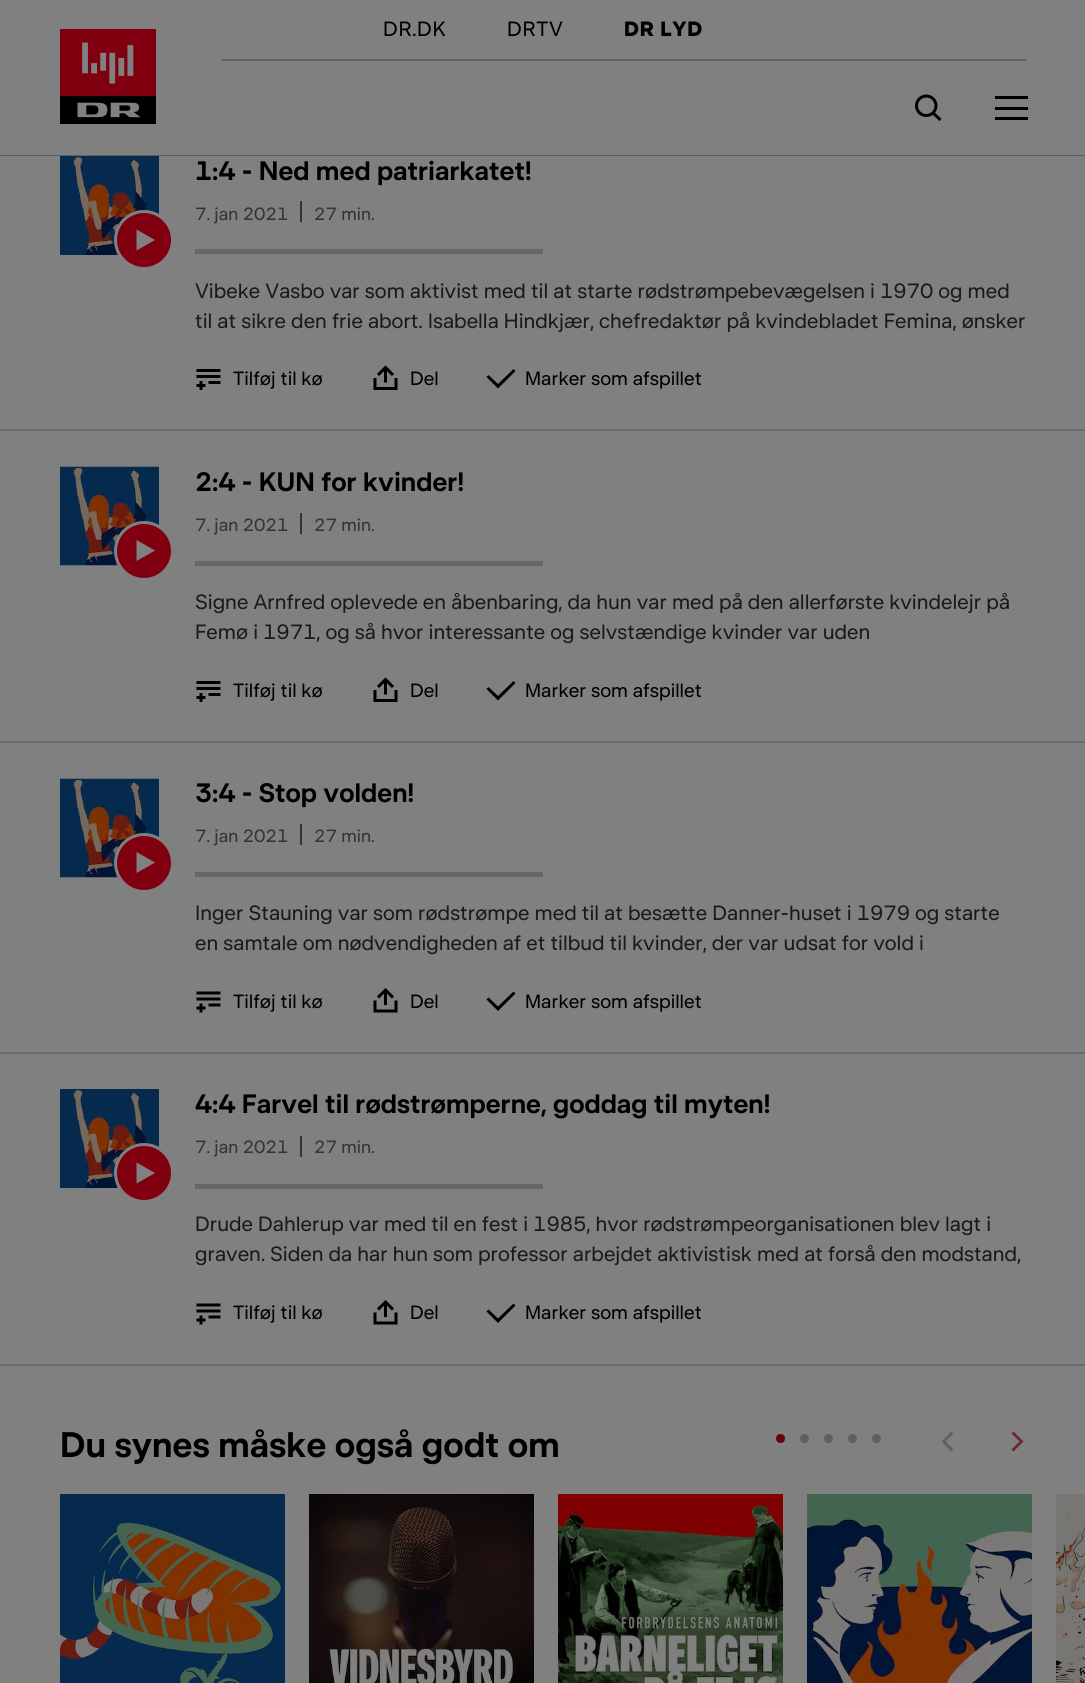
#include <cairo.h>
#include <math.h>
#include <stddef.h>


static void set_color(cairo_t *cr, unsigned color) {
    cairo_set_source_rgb(cr, (color >> 16) / 255.0, (color >> 8 & 255) / 255.0, (color & 255) / 255.0);
}

static void draw_text(cairo_t *cr, double x, double y, const char *s, const char *family, double size, int italic, int bold, unsigned color) {
    cairo_select_font_face(cr, family, italic ? CAIRO_FONT_SLANT_ITALIC : CAIRO_FONT_SLANT_NORMAL,
        bold ? CAIRO_FONT_WEIGHT_BOLD : CAIRO_FONT_WEIGHT_NORMAL);
    cairo_set_font_size(cr, size);
    set_color(cr, color);
    cairo_move_to(cr, x, y);
    cairo_show_text(cr, s);
}

static void draw_spaced(cairo_t *cr, double x, double y, const char *s, double letter, double word) {
    cairo_move_to(cr, x, y);
    while (*s) {
        char ch[5] = {0};
        int n = 0;
        do ch[n++] = *s++; while ((*s & 0xC0) == 0x80);
        cairo_show_text(cr, ch);
        cairo_rel_move_to(cr, letter + word * (*ch == ' '), 0);
    }
}

static void fill_rect(cairo_t *cr, double x, double y, double w, double h, unsigned color) {
    set_color(cr, color);
    cairo_rectangle(cr, x, y, w, h);
    cairo_fill(cr);
}

static void draw_image(cairo_t *cr, const char *path, double x, double y, double w, double h) {
    cairo_surface_t *image = cairo_image_surface_create_from_png(path);
    cairo_save(cr);
    cairo_set_source_surface(cr, image, x, y);
    cairo_rectangle(cr, x, y, w, h);
    cairo_fill(cr);
    cairo_restore(cr);
    cairo_surface_destroy(image);
}

int main(void) {
    cairo_surface_t *surface = cairo_image_surface_create(CAIRO_FORMAT_RGB24, 1085, 1683);
    cairo_t *cr = cairo_create(surface);
    cairo_font_options_t *options = cairo_font_options_create();
    cairo_font_options_set_hint_metrics(options, CAIRO_HINT_METRICS_OFF);
    cairo_font_options_set_hint_style(options, CAIRO_HINT_STYLE_NONE);
    cairo_set_font_options(cr, options);
    cairo_set_miter_limit(cr, 4);
    set_color(cr, 0x808080);
    cairo_paint(cr);
    cairo_select_font_face(cr, "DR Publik", CAIRO_FONT_SLANT_NORMAL, CAIRO_FONT_WEIGHT_NORMAL);
    cairo_set_font_size(cr, 21);
    set_color(cr, 0x000000);
    draw_spaced(cr, 383, 36, "DR.DK", 0.75, 0);
    draw_spaced(cr, 507, 36, "DRTV", 0.75, 0);
    cairo_select_font_face(cr, "DR Publik", CAIRO_FONT_SLANT_NORMAL, CAIRO_FONT_WEIGHT_BOLD);
    draw_spaced(cr, 624, 36, "DR LYD", 0.75, 0);
    fill_rect(cr, 0, 155, 1085, 1, 0x606060);
    draw_image(cr, "assets/img1.png", 60, 29, 96, 95);
    fill_rect(cr, 222, 59, 804, 2, 0x606060);
    draw_image(cr, "assets/img2.png", 915, 94, 27, 27);
    fill_rect(cr, 995, 96, 33, 3, 0x000000);
    fill_rect(cr, 995, 107, 33, 3, 0x000000);
    fill_rect(cr, 995, 117, 33, 3, 0x000000);
    fill_rect(cr, 0, 429, 1085, 2, 0x6B6B6B);
    draw_image(cr, "assets/img3.png", 60, 156, 99, 99);
    set_color(cr, 0x80000F);
    cairo_arc(cr, 144, 240, 28.5, 0, 2 * M_PI);
    cairo_fill_preserve(cr);
    set_color(cr, 0x808080);
    cairo_set_line_width(cr, 3);
    cairo_stroke(cr);
    cairo_new_path(cr);
    cairo_move_to(cr, 155, 240);
    cairo_line_to(cr, 136.5, 250.5);
    cairo_line_to(cr, 136.5, 229.5);
    cairo_close_path(cr);
    cairo_fill(cr);
    draw_text(cr, 195, 180, "1:4 - Ned med patriarkatet!", "DR Publik SemiBold", 27, 0, 0, 0x000000);
    draw_text(cr, 195, 220, "7. jan 2021", "DR Publik", 18, 0, 0, 0x343434);
    draw_text(cr, 314, 220, "27 min.", "DR Publik", 18, 0, 0, 0x343434);
    fill_rect(cr, 300, 201, 2, 21, 0x343434);
    fill_rect(cr, 195, 249, 348, 5, 0x666666);
    draw_text(cr, 195, 298, "Vibeke Vasbo var som aktivist med til at starte rødstrømpebevægelsen i 1970 og med", "DR Publik", 21, 0, 0, 0x1A1A1A);
    draw_text(cr, 195, 328, "til at sikre den frie abort. Isabella Hindkjær, chefredaktør på kvindebladet Femina, ønsker", "DR Publik", 21, 0, 0, 0x1A1A1A);
    draw_image(cr, "assets/img4.png", 196, 369, 25, 21);
    draw_text(cr, 233, 385, "Tilføj til kø", "DR Publik", 19.5, 0, 0, 0x000000);
    draw_image(cr, "assets/img5.png", 373, 365, 25, 25);
    draw_text(cr, 410, 385, "Del", "DR Publik", 19.5, 0, 0, 0x000000);
    cairo_new_path(cr);
    cairo_move_to(cr, 498, 384);
    cairo_line_to(cr, 513.5, 369);
    cairo_line_to(cr, 515.5, 371);
    cairo_line_to(cr, 498, 388.5);
    cairo_line_to(cr, 486.5, 377);
    cairo_line_to(cr, 488.5, 375);
    cairo_close_path(cr);
    cairo_fill(cr);
    draw_text(cr, 525, 385, "Marker som afspillet", "DR Publik", 19.5, 0, 0, 0x000000);
    fill_rect(cr, 0, 741, 1085, 2, 0x6B6B6B);
    draw_image(cr, "assets/img6.png", 60, 466, 99, 100);
    set_color(cr, 0x80000F);
    cairo_arc(cr, 144, 551, 28.5, 0, 2 * M_PI);
    cairo_fill_preserve(cr);
    set_color(cr, 0x808080);
    cairo_stroke(cr);
    cairo_new_path(cr);
    cairo_move_to(cr, 155, 550.5);
    cairo_line_to(cr, 136.5, 561);
    cairo_line_to(cr, 136.5, 540);
    cairo_close_path(cr);
    cairo_fill(cr);
    draw_text(cr, 195, 491, "2:4 - KUN for kvinder!", "DR Publik SemiBold", 27, 0, 0, 0x000000);
    draw_text(cr, 195, 531, "7. jan 2021", "DR Publik", 18, 0, 0, 0x343434);
    draw_text(cr, 314, 531, "27 min.", "DR Publik", 18, 0, 0, 0x343434);
    fill_rect(cr, 300, 513, 2, 21, 0x343434);
    fill_rect(cr, 195, 561, 348, 5, 0x666666);
    draw_text(cr, 195, 609, "Signe Arnfred oplevede en åbenbaring, da hun var med på den allerførste kvindelejr på", "DR Publik", 21, 0, 0, 0x1A1A1A);
    draw_text(cr, 195, 639, "Femø i 1971, og så hvor interessante og selvstændige kvinder var uden", "DR Publik", 21, 0, 0, 0x1A1A1A);
    draw_image(cr, "assets/img4.png", 196, 681, 25, 21);
    draw_text(cr, 233, 697, "Tilføj til kø", "DR Publik", 19.5, 0, 0, 0x000000);
    draw_image(cr, "assets/img5.png", 373, 677, 25, 25);
    draw_text(cr, 410, 697, "Del", "DR Publik", 19.5, 0, 0, 0x000000);
    cairo_new_path(cr);
    cairo_move_to(cr, 498, 696);
    cairo_line_to(cr, 513.5, 681);
    cairo_line_to(cr, 515.5, 683);
    cairo_line_to(cr, 498, 700.5);
    cairo_line_to(cr, 486.5, 689);
    cairo_line_to(cr, 488.5, 687);
    cairo_close_path(cr);
    cairo_fill(cr);
    draw_text(cr, 525, 697, "Marker som afspillet", "DR Publik", 19.5, 0, 0, 0x000000);
    fill_rect(cr, 0, 1052, 1085, 2, 0x6B6B6B);
    draw_image(cr, "assets/img6.png", 60, 778, 99, 100);
    set_color(cr, 0x80000F);
    cairo_arc(cr, 144, 863, 28.5, 0, 2 * M_PI);
    cairo_fill_preserve(cr);
    set_color(cr, 0x808080);
    cairo_stroke(cr);
    cairo_new_path(cr);
    cairo_move_to(cr, 155, 862.5);
    cairo_line_to(cr, 136.5, 873);
    cairo_line_to(cr, 136.5, 852);
    cairo_close_path(cr);
    cairo_fill(cr);
    draw_text(cr, 195, 802, "3:4 - Stop volden!", "DR Publik SemiBold", 27, 0, 0, 0x000000);
    draw_text(cr, 195, 842, "7. jan 2021", "DR Publik", 18, 0, 0, 0x343434);
    draw_text(cr, 314, 842, "27 min.", "DR Publik", 18, 0, 0, 0x343434);
    fill_rect(cr, 300, 824, 2, 21, 0x343434);
    fill_rect(cr, 195, 872, 348, 5, 0x666666);
    draw_text(cr, 195, 920, "Inger Stauning var som rødstrømpe med til at besætte Danner-huset i 1979 og starte", "DR Publik", 21, 0, 0, 0x1A1A1A);
    draw_text(cr, 195, 950, "en samtale om nødvendigheden af et tilbud til kvinder, der var udsat for vold i", "DR Publik", 21, 0, 0, 0x1A1A1A);
    draw_image(cr, "assets/img7.png", 196, 991, 25, 22);
    draw_text(cr, 233, 1008, "Tilføj til kø", "DR Publik", 19.5, 0, 0, 0x000000);
    draw_image(cr, "assets/img8.png", 373, 988, 25, 25);
    draw_text(cr, 410, 1008, "Del", "DR Publik", 19.5, 0, 0, 0x000000);
    cairo_new_path(cr);
    cairo_move_to(cr, 498, 1006.5);
    cairo_line_to(cr, 513.5, 991.5);
    cairo_line_to(cr, 515.5, 993.5);
    cairo_line_to(cr, 498, 1011);
    cairo_line_to(cr, 486.5, 999.5);
    cairo_line_to(cr, 488.5, 997.5);
    cairo_close_path(cr);
    cairo_fill(cr);
    draw_text(cr, 525, 1008, "Marker som afspillet", "DR Publik", 19.5, 0, 0, 0x000000);
    fill_rect(cr, 0, 1364, 1085, 2, 0x6B6B6B);
    draw_image(cr, "assets/img3.png", 60, 1089, 99, 99);
    set_color(cr, 0x80000F);
    cairo_arc(cr, 144, 1173, 28.5, 0, 2 * M_PI);
    cairo_fill_preserve(cr);
    set_color(cr, 0x808080);
    cairo_stroke(cr);
    cairo_new_path(cr);
    cairo_move_to(cr, 155, 1173);
    cairo_line_to(cr, 136.5, 1183.5);
    cairo_line_to(cr, 136.5, 1162.5);
    cairo_close_path(cr);
    cairo_fill(cr);
    draw_text(cr, 195, 1113, "4:4 Farvel til rødstrømperne, goddag til myten!", "DR Publik SemiBold", 27, 0, 0, 0x000000);
    draw_text(cr, 195, 1153, "7. jan 2021", "DR Publik", 18, 0, 0, 0x343434);
    draw_text(cr, 314, 1153, "27 min.", "DR Publik", 18, 0, 0, 0x343434);
    fill_rect(cr, 300, 1136, 2, 21, 0x343434);
    fill_rect(cr, 195, 1184, 348, 5, 0x666666);
    draw_text(cr, 195, 1231, "Drude Dahlerup var med til en fest i 1985, hvor rødstrømpeorganisationen blev lagt i", "DR Publik", 21, 0, 0, 0x1A1A1A);
    draw_text(cr, 195, 1261, "graven. Siden da har hun som professor arbejdet aktivistisk med at forså den modstand,", "DR Publik", 21, 0, 0, 0x1A1A1A);
    draw_image(cr, "assets/img7.png", 196, 1303, 25, 22);
    draw_text(cr, 233, 1319, "Tilføj til kø", "DR Publik", 19.5, 0, 0, 0x000000);
    draw_image(cr, "assets/img8.png", 373, 1300, 25, 25);
    draw_text(cr, 410, 1319, "Del", "DR Publik", 19.5, 0, 0, 0x000000);
    cairo_new_path(cr);
    cairo_move_to(cr, 498, 1318.5);
    cairo_line_to(cr, 513.5, 1303.5);
    cairo_line_to(cr, 515.5, 1305.5);
    cairo_line_to(cr, 498, 1323);
    cairo_line_to(cr, 486.5, 1311.5);
    cairo_line_to(cr, 488.5, 1309.5);
    cairo_close_path(cr);
    cairo_fill(cr);
    draw_text(cr, 525, 1319, "Marker som afspillet", "DR Publik", 19.5, 0, 0, 0x000000);
    draw_text(cr, 60, 1457, "Du synes måske også godt om", "DR Publik SemiBold", 36, 0, 0, 0x000000);
    set_color(cr, 0x65010D);
    cairo_new_path(cr);
    cairo_arc(cr, 780.5, 1438.5, 4.5, 0, 2 * M_PI);
    cairo_fill(cr);
    set_color(cr, 0x606060);
    cairo_arc(cr, 804.5, 1438.5, 4.5, 0, 2 * M_PI);
    cairo_fill(cr);
    cairo_arc(cr, 828.5, 1438.5, 4.5, 0, 2 * M_PI);
    cairo_fill(cr);
    cairo_arc(cr, 852.5, 1438.5, 4.5, 0, 2 * M_PI);
    cairo_fill(cr);
    cairo_arc(cr, 876.5, 1438.5, 4.5, 0, 2 * M_PI);
    cairo_fill(cr);
    cairo_new_path(cr);
    cairo_move_to(cr, 945.5, 1441.5);
    cairo_line_to(cr, 953.5, 1449.5);
    cairo_line_to(cr, 951.5, 1451.5);
    cairo_line_to(cr, 941.5, 1441.5);
    cairo_line_to(cr, 951.5, 1431.5);
    cairo_line_to(cr, 953.5, 1433.5);
    cairo_close_path(cr);
    cairo_fill(cr);
    set_color(cr, 0x6D272F);
    cairo_new_path(cr);
    cairo_move_to(cr, 1019.5, 1441.5);
    cairo_line_to(cr, 1011.5, 1433.5);
    cairo_line_to(cr, 1013.5, 1431.5);
    cairo_line_to(cr, 1023.5, 1441.5);
    cairo_line_to(cr, 1013.5, 1451.5);
    cairo_line_to(cr, 1011.5, 1449.5);
    cairo_close_path(cr);
    cairo_fill(cr);
    draw_image(cr, "assets/img9.png", 60, 1494, 225, 189);
    draw_image(cr, "assets/img10.png", 309, 1494, 225, 189);
    draw_image(cr, "assets/img11.png", 558, 1494, 225, 189);
    draw_image(cr, "assets/img12.png", 807, 1494, 225, 189);
    draw_image(cr, "assets/img13.png", 1056, 1494, 29, 189);
    cairo_surface_write_to_png(surface, "output.png");
    cairo_font_options_destroy(options);
    cairo_destroy(cr);
    cairo_surface_destroy(surface);
    return 0;
}
